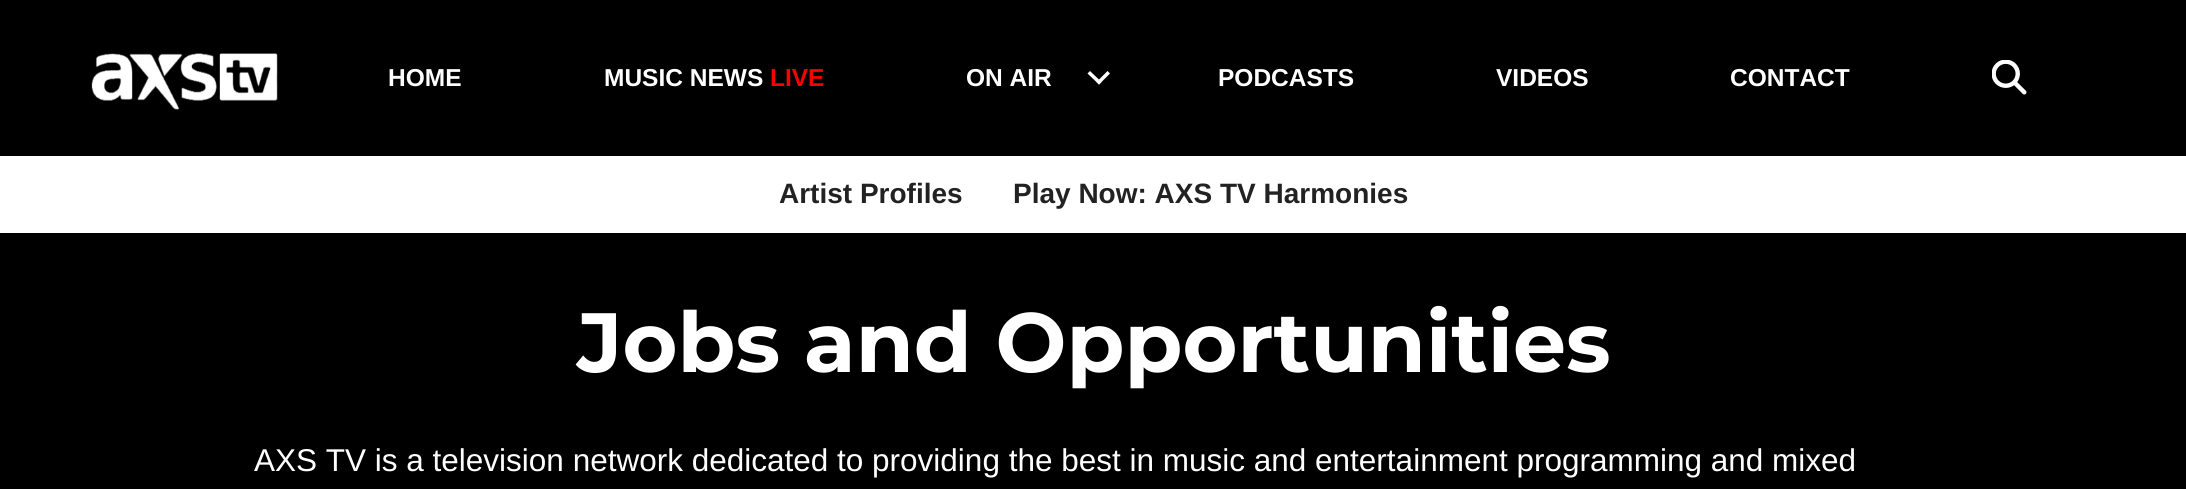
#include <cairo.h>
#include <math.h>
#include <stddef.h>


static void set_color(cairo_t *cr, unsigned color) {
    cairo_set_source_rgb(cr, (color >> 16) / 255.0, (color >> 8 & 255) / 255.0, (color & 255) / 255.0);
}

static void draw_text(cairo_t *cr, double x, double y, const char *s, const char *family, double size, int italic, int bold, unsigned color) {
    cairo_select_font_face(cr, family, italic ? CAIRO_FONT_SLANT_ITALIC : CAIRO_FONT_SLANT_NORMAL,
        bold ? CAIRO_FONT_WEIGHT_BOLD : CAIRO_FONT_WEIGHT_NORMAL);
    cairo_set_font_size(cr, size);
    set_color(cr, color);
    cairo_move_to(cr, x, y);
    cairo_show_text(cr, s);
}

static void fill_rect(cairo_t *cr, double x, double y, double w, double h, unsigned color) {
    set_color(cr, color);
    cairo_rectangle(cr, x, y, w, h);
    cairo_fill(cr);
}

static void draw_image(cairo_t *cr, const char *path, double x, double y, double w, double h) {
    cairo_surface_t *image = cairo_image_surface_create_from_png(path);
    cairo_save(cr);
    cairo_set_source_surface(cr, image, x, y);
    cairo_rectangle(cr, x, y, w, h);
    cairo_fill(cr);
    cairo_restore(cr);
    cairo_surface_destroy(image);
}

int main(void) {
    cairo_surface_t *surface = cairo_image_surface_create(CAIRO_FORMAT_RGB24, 2186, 489);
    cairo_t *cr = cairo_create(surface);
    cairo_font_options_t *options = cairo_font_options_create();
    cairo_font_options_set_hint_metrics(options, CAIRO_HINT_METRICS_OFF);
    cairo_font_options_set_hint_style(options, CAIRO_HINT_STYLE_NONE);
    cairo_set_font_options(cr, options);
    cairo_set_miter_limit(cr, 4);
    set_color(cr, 0x000000);
    cairo_paint(cr);
    draw_image(cr, "assets/img1.png", 91, 53, 187, 57);
    draw_text(cr, 388, 86, "HOME", "Liberation Sans", 24.5, 0, 1, 0xFFFFFF);
    draw_text(cr, 604, 86, "MUSIC NEWS", "Liberation Sans", 24.5, 0, 1, 0xFFFFFF);
    draw_text(cr, 770, 86, "LIVE", "Liberation Sans", 24.5, 0, 1, 0xF70301);
    draw_text(cr, 966, 86, "ON AIR", "Liberation Sans", 24.5, 0, 1, 0xFFFFFF);
    cairo_new_path(cr);
    cairo_move_to(cr, 1107.5, 71);
    cairo_line_to(cr, 1110, 73.5);
    cairo_line_to(cr, 1099, 84.5);
    cairo_line_to(cr, 1096.5, 82);
    cairo_close_path(cr);
    cairo_fill(cr);
    cairo_new_path(cr);
    cairo_move_to(cr, 1090, 71);
    cairo_line_to(cr, 1101.5, 82);
    cairo_line_to(cr, 1099, 84.5);
    cairo_line_to(cr, 1087.5, 73.5);
    cairo_close_path(cr);
    cairo_fill(cr);
    draw_text(cr, 1218, 86, "PODCASTS", "Liberation Sans", 24.5, 0, 1, 0xFFFFFF);
    draw_text(cr, 1496, 86, "VIDEOS", "Liberation Sans", 24.5, 0, 1, 0xFFFFFF);
    draw_text(cr, 1730, 86, "CONTACT", "Liberation Sans", 24.5, 0, 1, 0xFFFFFF);
    draw_image(cr, "assets/img2.png", 1992, 60, 35, 35);
    fill_rect(cr, 0, 156, 2186, 77, 0xFFFFFF);
    draw_text(cr, 779, 203, "Artist Profiles", "Liberation Sans", 28, 0, 1, 0x222222);
    draw_text(cr, 1013, 203, "Play Now: AXS TV Harmonies", "Liberation Sans", 28, 0, 1, 0x222222);
    draw_text(cr, 577, 372, "Jobs and Opportunities", "Montserrat Thin", 84, 0, 0, 0xFFFFFF);
    draw_text(cr, 254, 471, "AXS TV is a television network dedicated to providing the best in music and entertainment programming and mixed", "Liberation Sans", 31.5, 0, 0, 0xFFFFFF);
    cairo_surface_write_to_png(surface, "output.png");
    cairo_font_options_destroy(options);
    cairo_destroy(cr);
    cairo_surface_destroy(surface);
    return 0;
}
